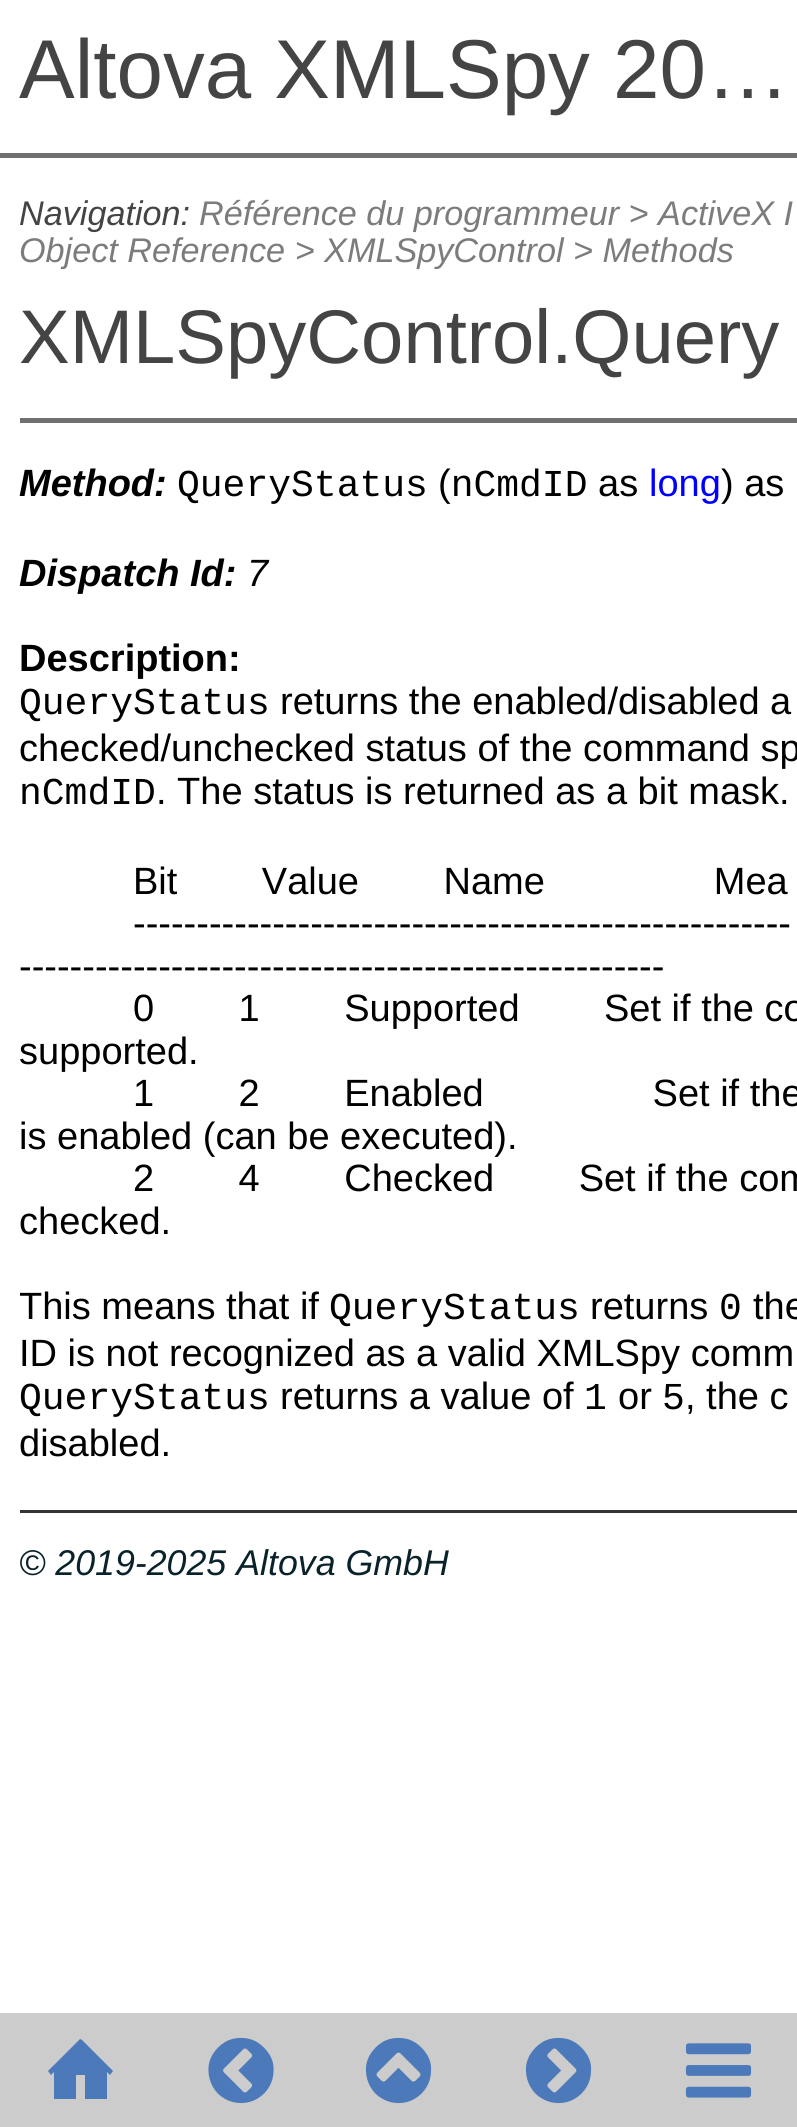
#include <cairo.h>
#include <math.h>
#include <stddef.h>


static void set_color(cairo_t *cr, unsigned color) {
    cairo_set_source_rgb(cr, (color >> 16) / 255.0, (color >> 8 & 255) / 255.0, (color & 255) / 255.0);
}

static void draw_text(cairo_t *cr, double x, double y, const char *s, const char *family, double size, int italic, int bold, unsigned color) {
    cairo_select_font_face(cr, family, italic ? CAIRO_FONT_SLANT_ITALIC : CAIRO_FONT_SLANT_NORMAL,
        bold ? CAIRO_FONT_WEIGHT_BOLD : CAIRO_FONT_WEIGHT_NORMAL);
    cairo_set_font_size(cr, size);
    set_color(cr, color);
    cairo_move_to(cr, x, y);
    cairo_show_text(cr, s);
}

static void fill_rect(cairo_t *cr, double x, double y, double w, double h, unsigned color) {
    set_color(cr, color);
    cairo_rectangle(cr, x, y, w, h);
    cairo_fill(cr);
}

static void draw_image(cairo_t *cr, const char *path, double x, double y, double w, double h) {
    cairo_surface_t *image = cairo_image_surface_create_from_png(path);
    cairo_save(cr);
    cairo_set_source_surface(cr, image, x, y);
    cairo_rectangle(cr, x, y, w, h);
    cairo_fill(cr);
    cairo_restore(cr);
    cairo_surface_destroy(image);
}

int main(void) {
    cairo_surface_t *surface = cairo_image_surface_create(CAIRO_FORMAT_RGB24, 797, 2127);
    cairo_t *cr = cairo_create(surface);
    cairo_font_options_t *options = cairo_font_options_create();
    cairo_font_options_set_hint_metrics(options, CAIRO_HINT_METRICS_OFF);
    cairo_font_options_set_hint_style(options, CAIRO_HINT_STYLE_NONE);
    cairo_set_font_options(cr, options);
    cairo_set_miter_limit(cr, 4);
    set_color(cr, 0xFFFFFF);
    cairo_paint(cr);
    draw_text(cr, 19, 98, "Altova XMLSpy 20…", "Liberation Sans", 83.5, 0, 0, 0x444444);
    fill_rect(cr, 0, 153, 797, 5, 0x707070);
    draw_text(cr, 19, 225, "Navigation:", "Liberation Sans", 34.2, 1, 0, 0x444444);
    draw_text(cr, 199, 225, "Référence du programmeur > ActiveX I", "Liberation Sans", 34.2, 1, 0, 0x7C7C7C);
    draw_text(cr, 19, 262, "Object Reference > XMLSpyControl > Methods", "Liberation Sans", 34.2, 1, 0, 0x7C7C7C);
    draw_text(cr, 19, 363, "XMLSpyControl.Query", "Liberation Sans", 76, 0, 0, 0x444444);
    fill_rect(cr, 20, 418, 777, 5, 0x707070);
    draw_text(cr, 19, 496, "Method:", "Liberation Sans", 38, 1, 1, 0x000000);
    draw_text(cr, 177, 496, "QueryStatus nCmdID", "Liberation Mono", 38, 0, 0, 0x000000);
    draw_text(cr, 438, 496, "(", "Liberation Sans", 38, 0, 0, 0x000000);
    draw_text(cr, 598, 496, "as", "Liberation Sans", 38, 0, 0, 0x000000);
    draw_text(cr, 649, 496, "long", "Liberation Sans", 38, 0, 0, 0x0000FF);
    draw_text(cr, 721, 496, ") as", "Liberation Sans", 38, 0, 0, 0x000000);
    draw_text(cr, 19, 586, "Dispatch Id:", "Liberation Sans", 38, 1, 1, 0x000000);
    draw_text(cr, 247, 586, "7", "Liberation Sans", 38, 1, 0, 0x000000);
    draw_text(cr, 19, 671, "Description:", "Liberation Sans", 38, 0, 1, 0x000000);
    draw_text(cr, 19, 714, "QueryStatus", "Liberation Mono", 38, 0, 0, 0x000000);
    draw_text(cr, 280, 714, "returns the enabled/disabled a", "Liberation Sans", 38, 0, 0, 0x000000);
    draw_text(cr, 19, 761, "checked/unchecked status of the command sp", "Liberation Sans", 38, 0, 0, 0x000000);
    draw_text(cr, 19, 804, "nCmdID", "Liberation Mono", 38, 0, 0, 0x000000);
    draw_text(cr, 156, 804, ". The status is returned as a bit mask.", "Liberation Sans", 38, 0, 0, 0x000000);
    draw_text(cr, 133, 894, "Bit        Value        Name                Mea", "Liberation Sans", 38, 0, 0, 0x000000);
    draw_text(cr, 133, 936, "----------------------------------------------------", "Liberation Sans", 38, 0, 0, 0x000000);
    draw_text(cr, 19, 979, "---------------------------------------------------", "Liberation Sans", 38, 0, 0, 0x000000);
    draw_text(cr, 133, 1021, "0        1        Supported        Set if the co", "Liberation Sans", 38, 0, 0, 0x000000);
    draw_text(cr, 19, 1064, "supported.", "Liberation Sans", 38, 0, 0, 0x000000);
    draw_text(cr, 133, 1106, "1        2        Enabled                Set if the", "Liberation Sans", 38, 0, 0, 0x000000);
    draw_text(cr, 19, 1149, "is enabled (can be executed).", "Liberation Sans", 38, 0, 0, 0x000000);
    draw_text(cr, 133, 1191, "2        4        Checked        Set if the com", "Liberation Sans", 38, 0, 0, 0x000000);
    draw_text(cr, 19, 1234, "checked.", "Liberation Sans", 38, 0, 0, 0x000000);
    cairo_save(cr);
    cairo_rectangle(cr, 20, 423, 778, 1205);
    cairo_clip(cr);
    draw_text(cr, 19, 1319, "This means that if", "Liberation Sans", 38, 0, 0, 0x000000);
    cairo_restore(cr);
    draw_text(cr, 329, 1319, "QueryStatus", "Liberation Mono", 38, 0, 0, 0x000000);
    draw_text(cr, 590, 1319, "returns", "Liberation Sans", 38, 0, 0, 0x000000);
    draw_text(cr, 719, 1319, "0", "Liberation Mono", 38, 0, 0, 0x000000);
    draw_text(cr, 753, 1319, "the", "Liberation Sans", 38, 0, 0, 0x000000);
    draw_text(cr, 19, 1366, "ID is not recognized as a valid XMLSpy comm", "Liberation Sans", 38, 0, 0, 0x000000);
    draw_text(cr, 19, 1409, "QueryStatus", "Liberation Mono", 38, 0, 0, 0x000000);
    draw_text(cr, 280, 1409, "returns a value of", "Liberation Sans", 38, 0, 0, 0x000000);
    draw_text(cr, 584, 1409, "1", "Liberation Mono", 38, 0, 0, 0x000000);
    draw_text(cr, 618, 1409, "or", "Liberation Sans", 38, 0, 0, 0x000000);
    draw_text(cr, 662, 1409, "5", "Liberation Mono", 38, 0, 0, 0x000000);
    draw_text(cr, 685, 1409, ", the c", "Liberation Sans", 38, 0, 0, 0x000000);
    draw_text(cr, 19, 1456, "disabled.", "Liberation Sans", 38, 0, 0, 0x000000);
    fill_rect(cr, 20, 1510, 777, 3, 0x333333);
    draw_text(cr, 19, 1575, "© 2019-2025 Altova GmbH", "Liberation Sans", 35.75, 1, 0, 0x0A2229);
    fill_rect(cr, 0, 2013, 797, 114, 0xCCCCCC);
    set_color(cr, 0x4C79B9);
    cairo_new_path(cr);
    cairo_move_to(cr, 80, 2039);
    cairo_line_to(cr, 48, 2071);
    cairo_line_to(cr, 51, 2075);
    cairo_line_to(cr, 54, 2072);
    cairo_line_to(cr, 54, 2099);
    cairo_line_to(cr, 76, 2099);
    cairo_line_to(cr, 76, 2075);
    cairo_line_to(cr, 85, 2075);
    cairo_line_to(cr, 85, 2099);
    cairo_line_to(cr, 107, 2099);
    cairo_line_to(cr, 107, 2072);
    cairo_line_to(cr, 110, 2075);
    cairo_line_to(cr, 113, 2071);
    cairo_line_to(cr, 82, 2040);
    cairo_close_path(cr);
    cairo_fill(cr);
    draw_image(cr, "assets/img1.png", 208, 2037, 66, 67);
    draw_image(cr, "assets/img2.png", 365, 2037, 67, 67);
    draw_image(cr, "assets/img3.png", 525, 2037, 67, 67);
    draw_image(cr, "assets/img4.png", 685, 2043, 67, 55);
    cairo_surface_write_to_png(surface, "output.png");
    cairo_font_options_destroy(options);
    cairo_destroy(cr);
    cairo_surface_destroy(surface);
    return 0;
}
